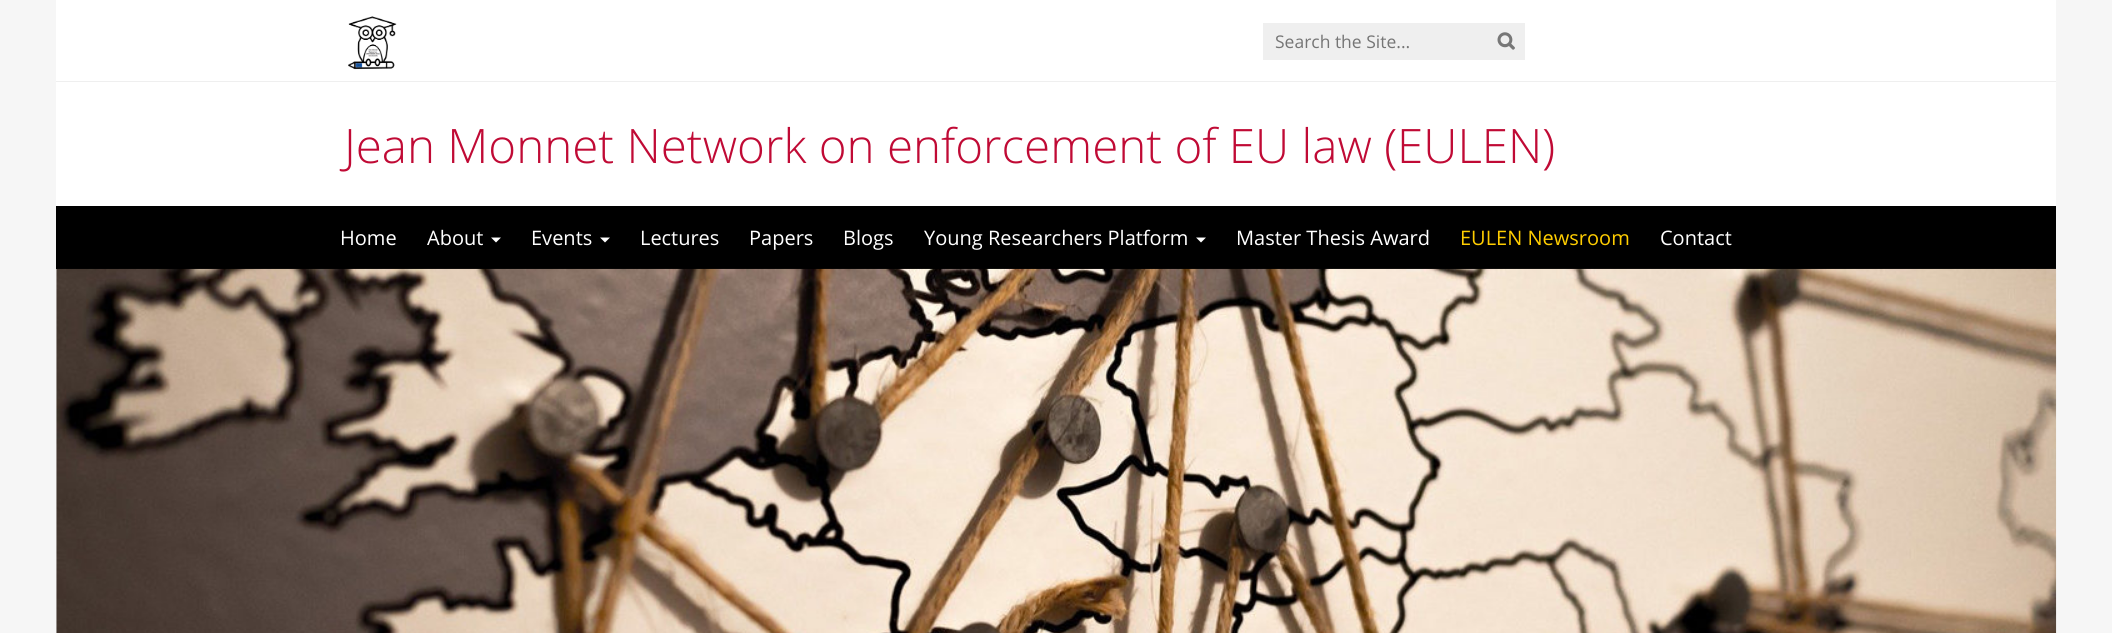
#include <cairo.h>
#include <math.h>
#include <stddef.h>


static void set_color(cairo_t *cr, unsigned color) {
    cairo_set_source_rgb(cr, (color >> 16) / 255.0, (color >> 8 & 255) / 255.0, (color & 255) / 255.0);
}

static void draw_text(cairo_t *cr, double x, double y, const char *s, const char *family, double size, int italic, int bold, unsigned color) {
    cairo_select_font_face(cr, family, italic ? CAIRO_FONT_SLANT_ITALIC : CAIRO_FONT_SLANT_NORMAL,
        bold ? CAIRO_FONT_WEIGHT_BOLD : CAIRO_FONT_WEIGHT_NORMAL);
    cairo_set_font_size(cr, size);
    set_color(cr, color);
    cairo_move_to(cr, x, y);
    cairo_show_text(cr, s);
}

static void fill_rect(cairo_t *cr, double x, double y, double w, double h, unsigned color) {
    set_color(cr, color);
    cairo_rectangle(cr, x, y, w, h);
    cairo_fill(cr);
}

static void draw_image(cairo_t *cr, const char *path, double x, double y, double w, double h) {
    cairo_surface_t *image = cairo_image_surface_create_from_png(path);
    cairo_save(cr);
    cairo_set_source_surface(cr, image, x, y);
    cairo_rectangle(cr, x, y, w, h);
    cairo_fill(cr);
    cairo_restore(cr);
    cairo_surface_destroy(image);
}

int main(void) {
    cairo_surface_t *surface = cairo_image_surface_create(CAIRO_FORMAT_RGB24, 2112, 633);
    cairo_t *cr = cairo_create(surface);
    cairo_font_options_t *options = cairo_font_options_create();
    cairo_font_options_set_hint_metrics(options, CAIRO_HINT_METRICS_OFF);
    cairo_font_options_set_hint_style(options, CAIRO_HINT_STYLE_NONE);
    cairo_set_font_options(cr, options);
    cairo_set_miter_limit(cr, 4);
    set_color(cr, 0xF6F6F6);
    cairo_paint(cr);
    fill_rect(cr, 56, 0, 2000, 206, 0xFFFFFF);
    fill_rect(cr, 56, 81, 2000, 1, 0xEFEFEF);
    draw_image(cr, "assets/img1.png", 348, 16, 49, 54);
    fill_rect(cr, 1263, 23, 262, 37, 0xEFEFEF);
    draw_text(cr, 1275, 48, "Search the Site...", "Open Sans", 17.5, 0, 0, 0x757575);
    draw_image(cr, "assets/img2.png", 1497, 32, 18, 18);
    draw_text(cr, 344, 163, "Jean Monnet Network on enforcement of EU law (EULEN)", "Open Sans Light", 47.5, 0, 0, 0xC00A35);
    fill_rect(cr, 56, 206, 2000, 63, 0x000000);
    draw_text(cr, 340, 245, "Home", "Open Sans", 20, 0, 0, 0xFFFFFF);
    draw_text(cr, 427, 245, "About", "Open Sans", 20, 0, 0, 0xFFFFFF);
    cairo_new_path(cr);
    cairo_move_to(cr, 491, 237.5);
    cairo_line_to(cr, 501, 237.5);
    cairo_line_to(cr, 496, 242.5);
    cairo_close_path(cr);
    cairo_fill(cr);
    draw_text(cr, 531, 245, "Events", "Open Sans", 20, 0, 0, 0xFFFFFF);
    cairo_new_path(cr);
    cairo_move_to(cr, 600, 237.5);
    cairo_line_to(cr, 610, 237.5);
    cairo_line_to(cr, 605, 242.5);
    cairo_close_path(cr);
    cairo_fill(cr);
    draw_text(cr, 640, 245, "Lectures", "Open Sans", 20, 0, 0, 0xFFFFFF);
    draw_text(cr, 749, 245, "Papers", "Open Sans", 20, 0, 0, 0xFFFFFF);
    draw_text(cr, 843, 245, "Blogs", "Open Sans", 20, 0, 0, 0xFFFFFF);
    draw_text(cr, 924, 245, "Young Researchers Platform", "Open Sans", 20, 0, 0, 0xFFFFFF);
    cairo_new_path(cr);
    cairo_move_to(cr, 1196, 237.5);
    cairo_line_to(cr, 1206, 237.5);
    cairo_line_to(cr, 1201, 242.5);
    cairo_close_path(cr);
    cairo_fill(cr);
    draw_text(cr, 1236, 245, "Master Thesis Award", "Open Sans", 20, 0, 0, 0xFFFFFF);
    draw_text(cr, 1460, 245, "EULEN Newsroom", "Open Sans", 20, 0, 0, 0xFFCD00);
    draw_text(cr, 1660, 245, "Contact", "Open Sans", 20, 0, 0, 0xFFFFFF);
    fill_rect(cr, 56, 269, 1, 364, 0xFFFFFF);
    draw_image(cr, "assets/img3.png", 56, 268, 2001, 365);
    cairo_surface_write_to_png(surface, "output.png");
    cairo_font_options_destroy(options);
    cairo_destroy(cr);
    cairo_surface_destroy(surface);
    return 0;
}
